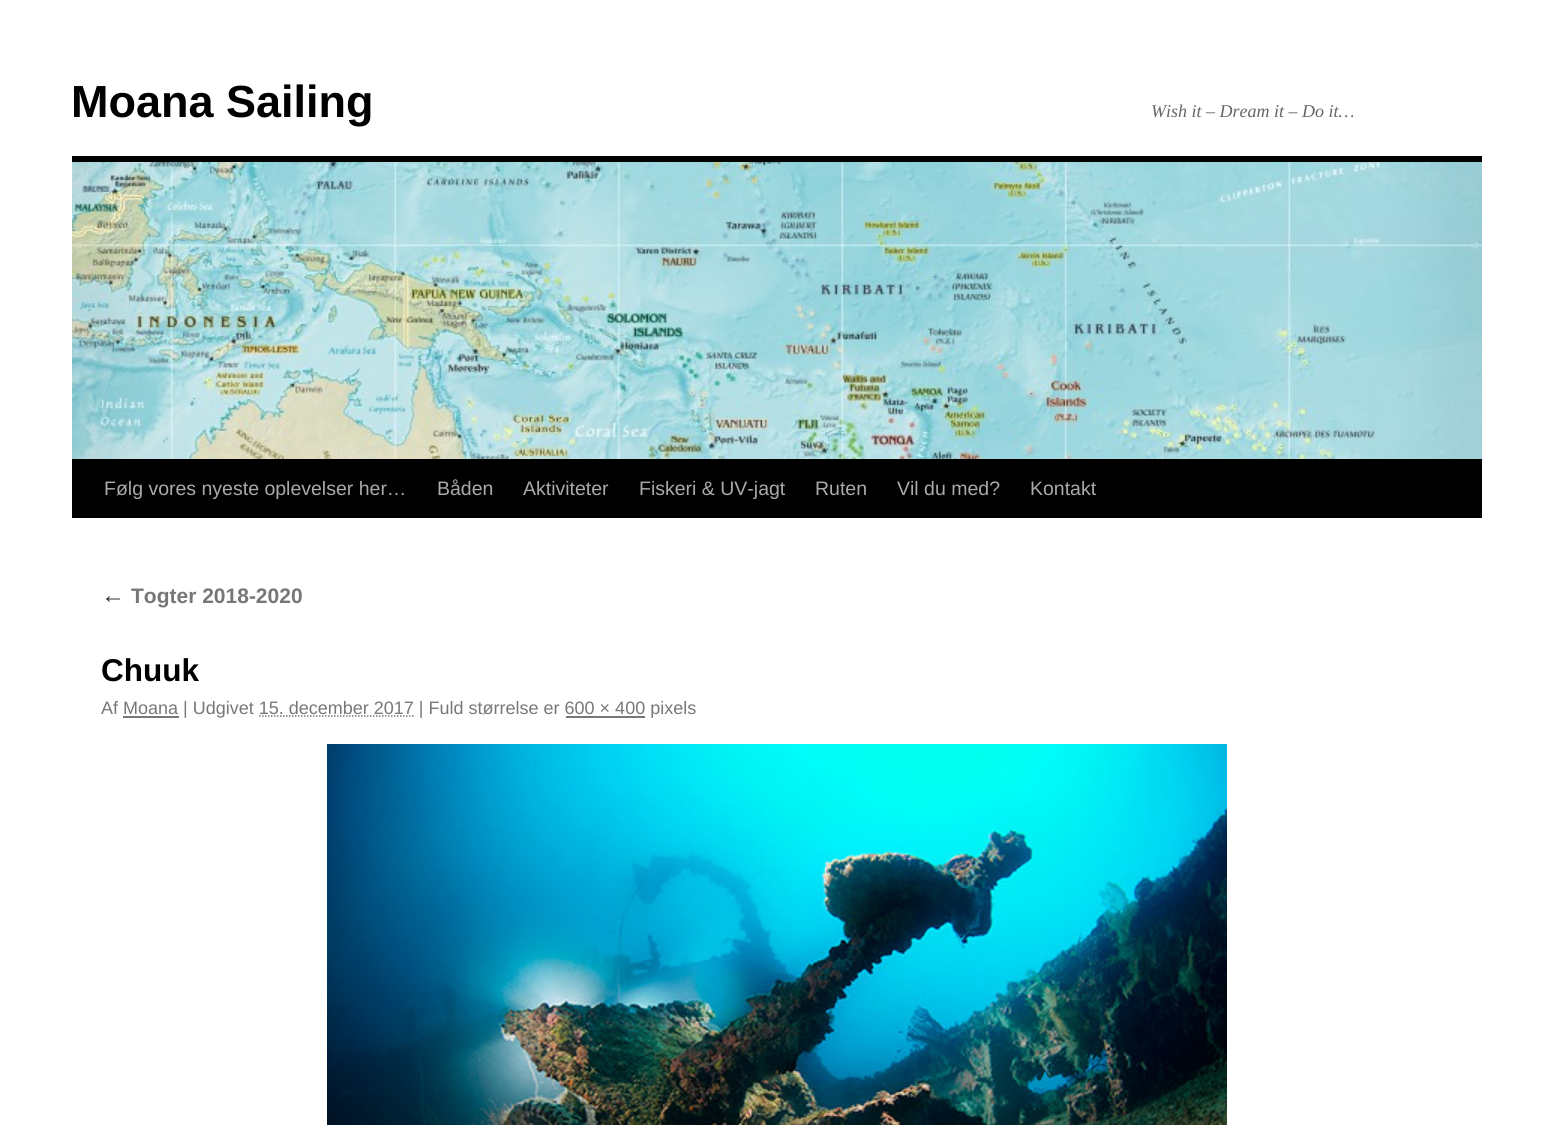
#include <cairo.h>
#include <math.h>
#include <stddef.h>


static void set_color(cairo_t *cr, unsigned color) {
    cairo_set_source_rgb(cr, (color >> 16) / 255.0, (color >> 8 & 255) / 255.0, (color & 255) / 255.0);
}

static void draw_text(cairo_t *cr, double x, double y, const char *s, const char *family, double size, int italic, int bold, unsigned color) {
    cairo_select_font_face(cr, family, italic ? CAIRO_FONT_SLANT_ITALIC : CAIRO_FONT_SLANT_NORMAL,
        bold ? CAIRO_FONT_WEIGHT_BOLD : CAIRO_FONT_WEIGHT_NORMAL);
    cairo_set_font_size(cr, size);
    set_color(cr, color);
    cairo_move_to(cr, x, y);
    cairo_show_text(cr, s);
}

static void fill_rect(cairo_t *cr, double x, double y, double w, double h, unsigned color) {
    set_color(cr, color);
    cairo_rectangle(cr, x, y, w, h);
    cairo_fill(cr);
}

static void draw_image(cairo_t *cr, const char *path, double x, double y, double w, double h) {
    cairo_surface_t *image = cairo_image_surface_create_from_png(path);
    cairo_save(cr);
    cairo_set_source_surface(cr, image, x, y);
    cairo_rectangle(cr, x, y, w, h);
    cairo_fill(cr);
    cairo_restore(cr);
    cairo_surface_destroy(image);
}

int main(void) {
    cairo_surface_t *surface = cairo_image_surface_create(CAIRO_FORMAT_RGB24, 1552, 1125);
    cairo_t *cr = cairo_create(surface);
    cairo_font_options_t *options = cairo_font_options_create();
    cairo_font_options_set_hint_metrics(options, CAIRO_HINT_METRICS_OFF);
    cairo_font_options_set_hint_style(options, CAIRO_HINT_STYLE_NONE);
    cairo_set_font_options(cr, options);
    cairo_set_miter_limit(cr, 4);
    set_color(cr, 0xFFFFFF);
    cairo_paint(cr);
    draw_text(cr, 71, 117, "Moana Sailing", "Liberation Sans", 45, 0, 1, 0x000000);
    draw_text(cr, 1151, 117, "Wish it – Dream it – Do it…", "Liberation Serif", 18, 1, 0, 0x666666);
    fill_rect(cr, 72, 156, 1410, 6, 0x000000);
    fill_rect(cr, 72, 459, 1410, 59, 0x000000);
    draw_image(cr, "assets/img1.png", 72, 162, 1410, 297);
    draw_text(cr, 104, 495, "Følg vores nyeste oplevelser her…", "Liberation Sans", 19.5, 0, 0, 0xAAAAAA);
    draw_text(cr, 437, 495, "Båden", "Liberation Sans", 19.5, 0, 0, 0xAAAAAA);
    draw_text(cr, 523, 495, "Aktiviteter", "Liberation Sans", 19.5, 0, 0, 0xAAAAAA);
    draw_text(cr, 639, 495, "Fiskeri & UV-jagt", "Liberation Sans", 19.5, 0, 0, 0xAAAAAA);
    draw_text(cr, 815, 495, "Ruten", "Liberation Sans", 19.5, 0, 0, 0xAAAAAA);
    draw_text(cr, 897, 495, "Vil du med?", "Liberation Sans", 19.5, 0, 0, 0xAAAAAA);
    draw_text(cr, 1030, 495, "Kontakt", "Liberation Sans", 19.5, 0, 0, 0xAAAAAA);
    draw_text(cr, 101, 603, "←", "Liberation Serif", 24, 1, 0, 0x333333);
    draw_text(cr, 131, 603, "Togter 2018-2020", "Liberation Sans", 21, 0, 1, 0x777777);
    draw_text(cr, 101, 681, "Chuuk", "Liberation Sans", 31.5, 0, 1, 0x000000);
    draw_text(cr, 101, 714, "Af Moana | Udgivet 15. december 2017 | Fuld størrelse er 600 × 400 pixels", "Liberation Sans", 18, 0, 0, 0x777777);
    fill_rect(cr, 123, 716, 56, 2, 0x777777);
    cairo_new_path(cr);
    cairo_move_to(cr, 259, 716);
    cairo_line_to(cr, 414, 716);
    cairo_set_line_width(cr, 1.5);
    cairo_set_dash(cr, (double[]){1.5, 1.5}, 2, 0);
    cairo_stroke(cr);
    fill_rect(cr, 566, 716, 79, 2, 0x777777);
    draw_image(cr, "assets/img2.png", 327, 744, 900, 381);
    cairo_surface_write_to_png(surface, "output.png");
    cairo_font_options_destroy(options);
    cairo_destroy(cr);
    cairo_surface_destroy(surface);
    return 0;
}
